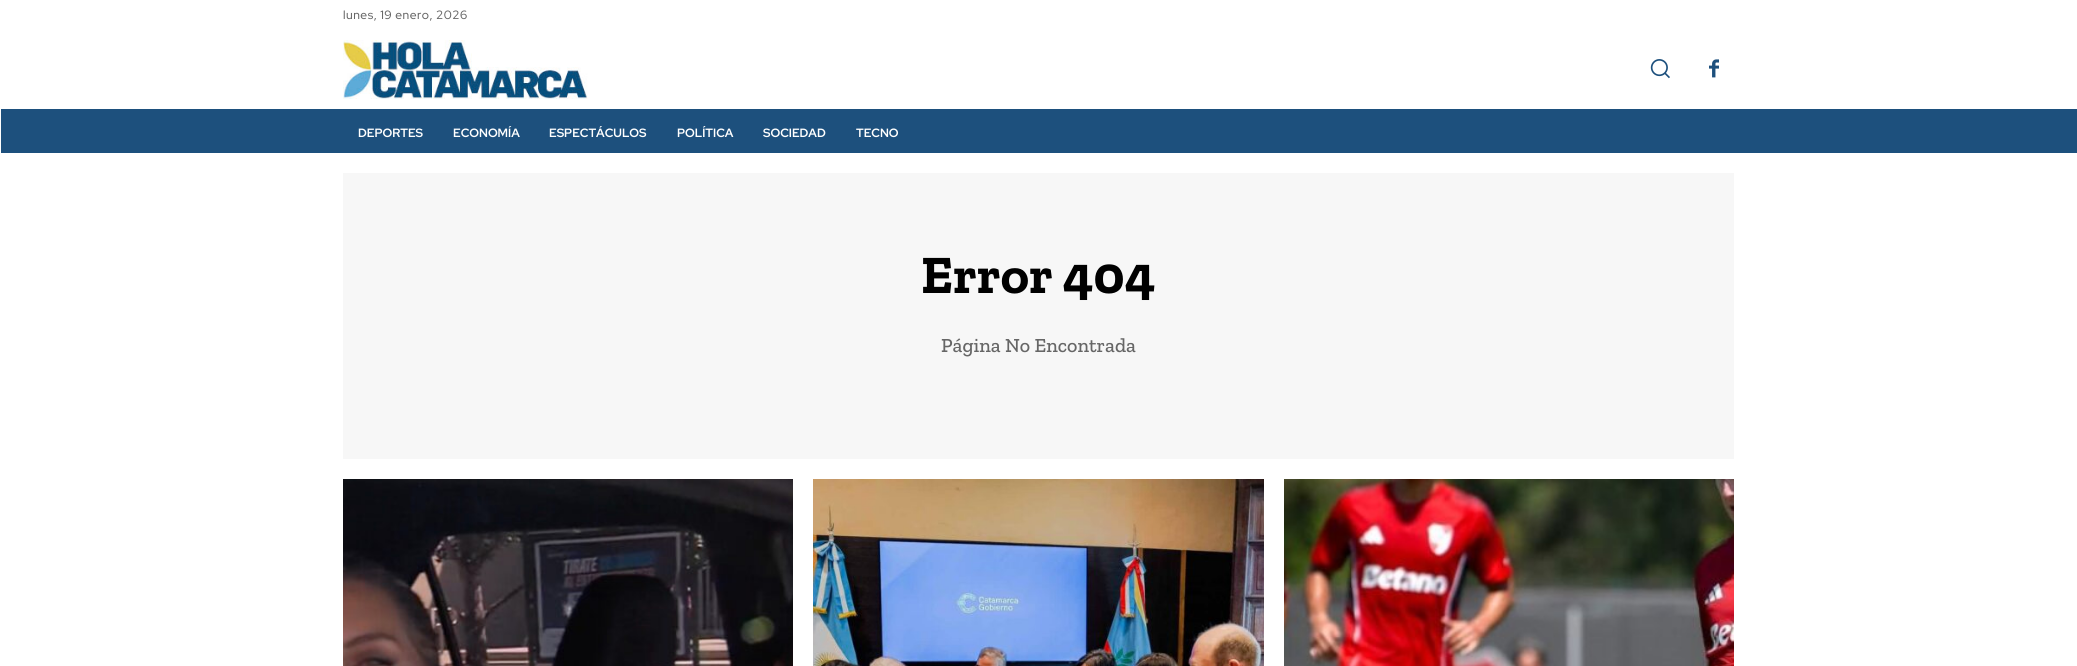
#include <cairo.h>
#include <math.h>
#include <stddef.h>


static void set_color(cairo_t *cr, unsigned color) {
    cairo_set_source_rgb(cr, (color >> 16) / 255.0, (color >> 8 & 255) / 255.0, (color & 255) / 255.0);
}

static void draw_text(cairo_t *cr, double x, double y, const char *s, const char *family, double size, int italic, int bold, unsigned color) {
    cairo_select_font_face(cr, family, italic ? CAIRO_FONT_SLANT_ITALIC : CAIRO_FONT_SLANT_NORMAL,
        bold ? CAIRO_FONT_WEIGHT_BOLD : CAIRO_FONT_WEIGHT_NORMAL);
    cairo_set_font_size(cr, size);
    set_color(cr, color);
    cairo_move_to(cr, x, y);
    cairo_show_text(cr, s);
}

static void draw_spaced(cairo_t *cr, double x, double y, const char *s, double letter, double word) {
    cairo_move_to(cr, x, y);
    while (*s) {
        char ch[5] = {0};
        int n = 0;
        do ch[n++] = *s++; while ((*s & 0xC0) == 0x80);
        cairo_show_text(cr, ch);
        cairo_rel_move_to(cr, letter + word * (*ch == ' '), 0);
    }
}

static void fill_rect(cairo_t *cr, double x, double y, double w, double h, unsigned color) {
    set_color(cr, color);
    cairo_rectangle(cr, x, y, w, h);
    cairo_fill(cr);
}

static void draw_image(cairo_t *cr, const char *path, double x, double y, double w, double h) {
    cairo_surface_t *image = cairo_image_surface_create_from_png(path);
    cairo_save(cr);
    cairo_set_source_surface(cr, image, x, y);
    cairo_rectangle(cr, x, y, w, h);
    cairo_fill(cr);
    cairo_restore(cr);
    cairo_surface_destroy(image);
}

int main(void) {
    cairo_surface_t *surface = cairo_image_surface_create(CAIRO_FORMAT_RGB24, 2077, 666);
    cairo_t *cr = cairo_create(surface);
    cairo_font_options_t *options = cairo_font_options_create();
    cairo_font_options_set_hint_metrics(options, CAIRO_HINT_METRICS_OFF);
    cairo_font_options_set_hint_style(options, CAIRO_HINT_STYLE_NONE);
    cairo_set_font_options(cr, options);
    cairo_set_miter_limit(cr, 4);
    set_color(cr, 0xFFFFFF);
    cairo_paint(cr);
    cairo_select_font_face(cr, "Red Hat Display Medium", CAIRO_FONT_SLANT_NORMAL, CAIRO_FONT_WEIGHT_NORMAL);
    cairo_set_font_size(cr, 12);
    set_color(cr, 0x666666);
    draw_spaced(cr, 343, 19, "lunes, 19 enero, 2026", 0.5, 0);
    draw_image(cr, "assets/img1.png", 343, 40, 245, 59);
    draw_image(cr, "assets/img2.png", 1650, 59, 20, 20);
    draw_image(cr, "assets/img3.png", 1709, 59, 10, 19);
    fill_rect(cr, 1, 109, 2076, 44, 0x1D507D);
    draw_text(cr, 358, 137, "DEPORTES", "Red Hat Display", 12, 0, 1, 0xFFFFFF);
    draw_text(cr, 453, 137, "ECONOMÍA", "Red Hat Display", 12, 0, 1, 0xFFFFFF);
    draw_text(cr, 549, 137, "ESPECTÁCULOS", "Red Hat Display", 12, 0, 1, 0xFFFFFF);
    draw_text(cr, 677, 137, "POLÍTICA", "Red Hat Display", 12, 0, 1, 0xFFFFFF);
    draw_text(cr, 763, 137, "SOCIEDAD", "Red Hat Display", 12, 0, 1, 0xFFFFFF);
    draw_text(cr, 856, 137, "TECNO", "Red Hat Display", 12, 0, 1, 0xFFFFFF);
    fill_rect(cr, 343, 173, 1391, 286, 0xF7F7F7);
    draw_text(cr, 921, 293, "Error 404", "Zilla Slab", 54, 0, 1, 0x000000);
    draw_text(cr, 941, 352, "Página No Encontrada", "Zilla Slab Medium", 20, 0, 0, 0x666666);
    draw_image(cr, "assets/img4.png", 343, 479, 450, 187);
    draw_image(cr, "assets/img5.png", 813, 479, 451, 187);
    draw_image(cr, "assets/img6.png", 1284, 479, 450, 187);
    cairo_surface_write_to_png(surface, "output.png");
    cairo_font_options_destroy(options);
    cairo_destroy(cr);
    cairo_surface_destroy(surface);
    return 0;
}
